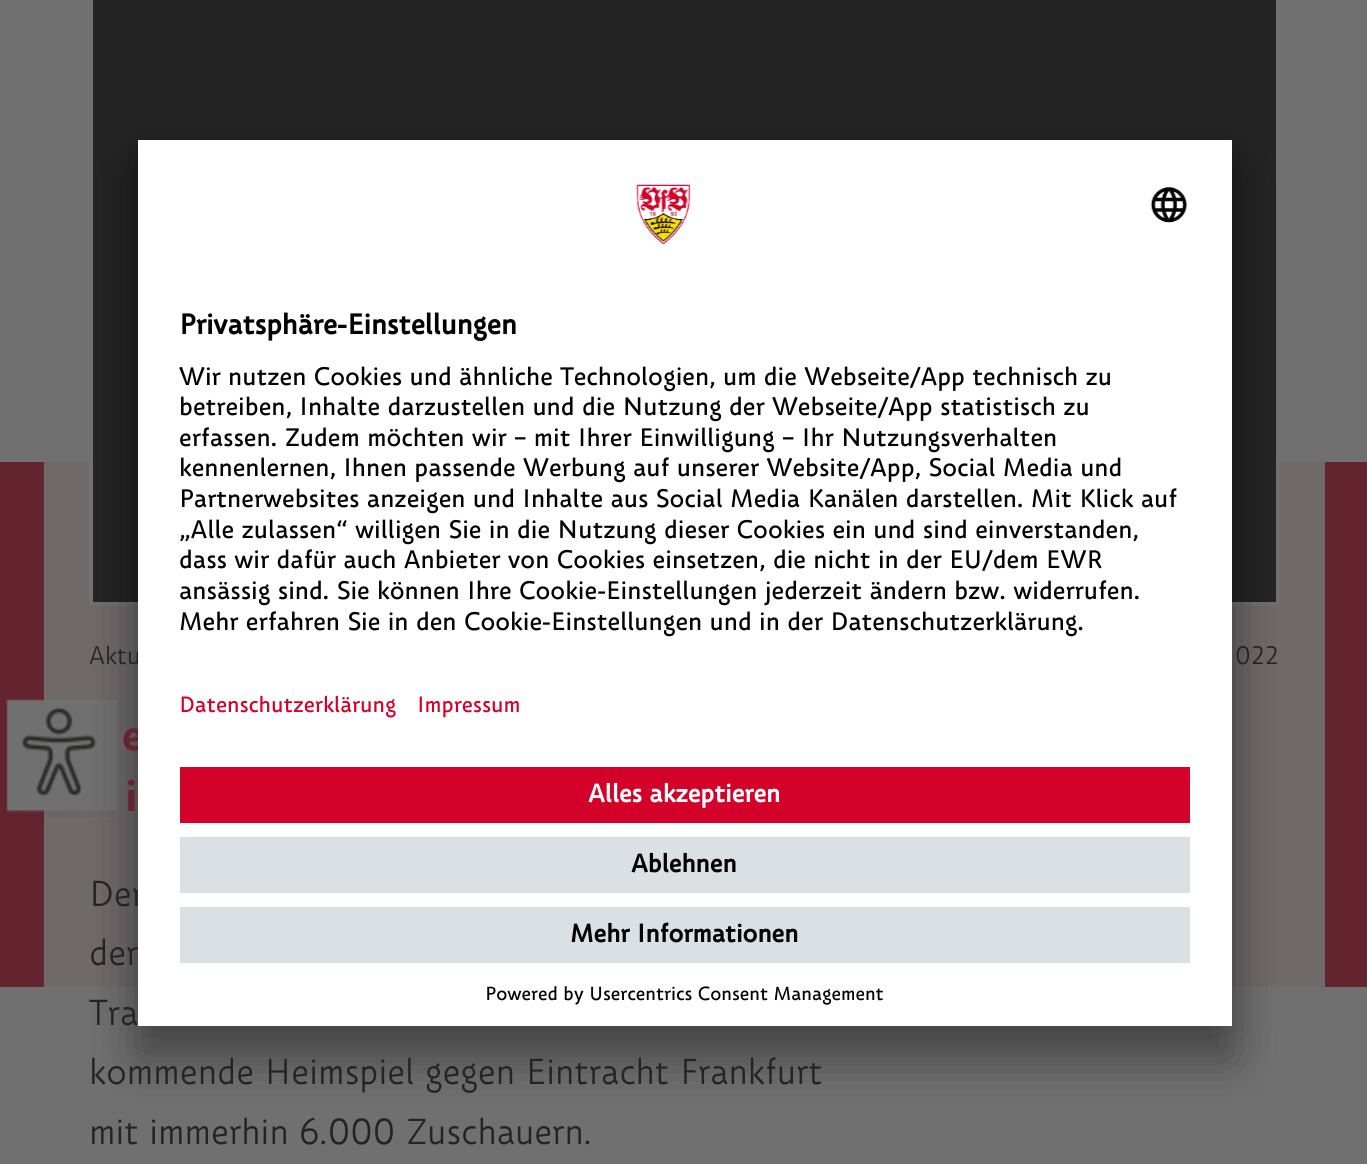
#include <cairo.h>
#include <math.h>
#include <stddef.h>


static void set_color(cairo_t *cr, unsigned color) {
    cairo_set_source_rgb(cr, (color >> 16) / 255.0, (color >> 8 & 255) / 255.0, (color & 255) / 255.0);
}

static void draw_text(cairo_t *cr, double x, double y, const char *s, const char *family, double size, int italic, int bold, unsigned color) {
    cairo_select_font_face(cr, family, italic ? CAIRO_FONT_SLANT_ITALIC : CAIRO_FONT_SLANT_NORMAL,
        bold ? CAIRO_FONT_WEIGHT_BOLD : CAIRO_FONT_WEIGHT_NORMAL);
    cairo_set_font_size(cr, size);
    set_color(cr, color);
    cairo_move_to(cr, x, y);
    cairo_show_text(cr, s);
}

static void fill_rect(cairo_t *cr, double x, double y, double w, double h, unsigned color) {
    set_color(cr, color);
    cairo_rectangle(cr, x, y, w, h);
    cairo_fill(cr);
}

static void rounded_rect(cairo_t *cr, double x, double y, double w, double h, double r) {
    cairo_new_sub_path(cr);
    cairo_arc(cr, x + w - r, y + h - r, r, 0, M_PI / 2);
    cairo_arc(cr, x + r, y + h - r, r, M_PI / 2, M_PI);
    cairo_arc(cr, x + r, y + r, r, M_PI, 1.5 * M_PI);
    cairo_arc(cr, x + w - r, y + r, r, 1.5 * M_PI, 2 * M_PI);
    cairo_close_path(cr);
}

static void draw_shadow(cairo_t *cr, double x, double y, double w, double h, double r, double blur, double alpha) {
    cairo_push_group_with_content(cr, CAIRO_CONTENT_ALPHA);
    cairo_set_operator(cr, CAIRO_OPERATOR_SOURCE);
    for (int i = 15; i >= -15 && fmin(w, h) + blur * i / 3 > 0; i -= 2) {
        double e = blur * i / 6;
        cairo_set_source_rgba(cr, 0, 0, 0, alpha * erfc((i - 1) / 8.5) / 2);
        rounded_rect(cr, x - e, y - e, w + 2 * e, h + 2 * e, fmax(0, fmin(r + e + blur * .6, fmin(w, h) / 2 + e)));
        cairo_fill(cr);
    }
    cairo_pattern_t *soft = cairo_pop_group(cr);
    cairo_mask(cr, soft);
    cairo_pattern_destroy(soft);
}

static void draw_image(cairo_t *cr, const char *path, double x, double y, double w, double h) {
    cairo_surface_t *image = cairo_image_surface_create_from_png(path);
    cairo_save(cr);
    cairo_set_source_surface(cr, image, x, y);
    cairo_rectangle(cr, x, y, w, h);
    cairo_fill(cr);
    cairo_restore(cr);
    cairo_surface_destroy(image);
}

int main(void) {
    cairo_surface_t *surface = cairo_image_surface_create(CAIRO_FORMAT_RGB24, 1367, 1164);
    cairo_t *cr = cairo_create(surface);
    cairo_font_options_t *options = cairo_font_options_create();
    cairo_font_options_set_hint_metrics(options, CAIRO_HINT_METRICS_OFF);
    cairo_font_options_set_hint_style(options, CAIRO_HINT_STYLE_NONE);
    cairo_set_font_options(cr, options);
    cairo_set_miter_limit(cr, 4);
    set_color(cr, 0x707070);
    cairo_paint(cr);
    fill_rect(cr, 0, 462, 1367, 525, 0x632430);
    fill_rect(cr, 44, 462, 1281, 525, 0x6F696A);
    cairo_rectangle(cr, 91, -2, 1186, 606);
    set_color(cr, 0x707070);
    cairo_set_line_width(cr, 4);
    cairo_stroke(cr);
    fill_rect(cr, 93, 0, 1183, 602, 0x242424);
    draw_image(cr, "assets/img3.png", 0, 699, 118, 118);
    set_color(cr, 0x000000);
    draw_shadow(cr, 138, 175, 1094, 886, 0, 24.5, 0.3);
    draw_shadow(cr, 138, 149, 1094, 885, 0, 23, 0.22);
    draw_text(cr, 89, 664, "Aktu", "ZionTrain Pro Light", 24.5, 0, 0, 0x242424);
    draw_text(cr, 122, 750, "e", "ZionTrain Pro", 42, 0, 1, 0x632430);
    draw_text(cr, 89, 906, "Der", "ZionTrain Pro Light", 35, 0, 0, 0x242424);
    draw_text(cr, 89, 965, "der", "ZionTrain Pro Light", 35, 0, 0, 0x242424);
    fill_rect(cr, 138, 140, 1094, 886, 0xFFFFFF);
    draw_image(cr, "assets/img1.png", 636, 184, 55, 61);
    draw_image(cr, "assets/img2.png", 1150, 187, 37, 36);
    draw_text(cr, 179, 334, "Privatsphäre-Einstellungen", "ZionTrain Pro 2", 27.5, 0, 1, 0x000000);
    draw_text(cr, 179, 385, "Wir nutzen Cookies und ähnliche Technologien, um die Webseite/App technisch zu", "ZionTrain Pro", 24.5, 0, 0, 0x000000);
    draw_text(cr, 179, 415, "betreiben, Inhalte darzustellen und die Nutzung der Webseite/App statistisch zu", "ZionTrain Pro", 24.5, 0, 0, 0x000000);
    draw_text(cr, 179, 446, "erfassen. Zudem möchten wir – mit Ihrer Einwilligung – Ihr Nutzungsverhalten", "ZionTrain Pro", 24.5, 0, 0, 0x000000);
    draw_text(cr, 179, 476, "kennenlernen, Ihnen passende Werbung auf unserer Website/App, Social Media und", "ZionTrain Pro", 24.5, 0, 0, 0x000000);
    draw_text(cr, 179, 507, "Partnerwebsites anzeigen und Inhalte aus Social Media Kanälen darstellen. Mit Klick auf", "ZionTrain Pro", 24.5, 0, 0, 0x000000);
    draw_text(cr, 179, 538, "„Alle zulassen“ willigen Sie in die Nutzung dieser Cookies ein und sind einverstanden,", "ZionTrain Pro", 24.5, 0, 0, 0x000000);
    draw_text(cr, 179, 568, "dass wir dafür auch Anbieter von Cookies einsetzen, die nicht in der EU/dem EWR", "ZionTrain Pro", 24.5, 0, 0, 0x000000);
    draw_text(cr, 179, 599, "ansässig sind. Sie können Ihre Cookie-Einstellungen jederzeit ändern bzw. widerrufen.", "ZionTrain Pro", 24.5, 0, 0, 0x000000);
    draw_text(cr, 179, 630, "Mehr erfahren Sie in den Cookie-Einstellungen und in der Datenschutzerklärung.", "ZionTrain Pro", 24.5, 0, 0, 0x000000);
    draw_text(cr, 179, 712, "Datenschutzerklärung", "ZionTrain Pro", 21.5, 0, 0, 0xD30029);
    draw_text(cr, 417, 712, "Impressum", "ZionTrain Pro", 21.5, 0, 0, 0xD30029);
    fill_rect(cr, 180, 767, 1010, 56, 0xD30029);
    draw_text(cr, 588, 802, "Alles akzeptieren", "ZionTrain Pro 2", 24.5, 0, 1, 0xFFFFFF);
    fill_rect(cr, 180, 837, 1010, 56, 0xDAE0E3);
    draw_text(cr, 631, 872, "Ablehnen", "ZionTrain Pro 2", 24.5, 0, 1, 0x000000);
    fill_rect(cr, 180, 907, 1010, 56, 0xDAE0E3);
    draw_text(cr, 570, 942, "Mehr Informationen", "ZionTrain Pro 2", 24.5, 0, 1, 0x000000);
    draw_text(cr, 485, 1000, "Powered by Usercentrics Consent Management", "ZionTrain Pro", 18.4, 0, 0, 0x000000);
    draw_text(cr, 1235, 664, "022", "ZionTrain Pro Light", 24.5, 0, 0, 0x242424);
    draw_text(cr, 125, 811, "i", "ZionTrain Pro", 42, 0, 1, 0x632430);
    draw_text(cr, 89, 1025, "Tra", "ZionTrain Pro Light", 35, 0, 0, 0x242424);
    draw_text(cr, 89, 1084, "kommende Heimspiel gegen Eintracht Frankfurt", "ZionTrain Pro Light", 35, 0, 0, 0x242424);
    draw_text(cr, 89, 1144, "mit immerhin 6.000 Zuschauern.", "ZionTrain Pro Light", 35, 0, 0, 0x242424);
    cairo_surface_write_to_png(surface, "output.png");
    cairo_font_options_destroy(options);
    cairo_destroy(cr);
    cairo_surface_destroy(surface);
    return 0;
}
